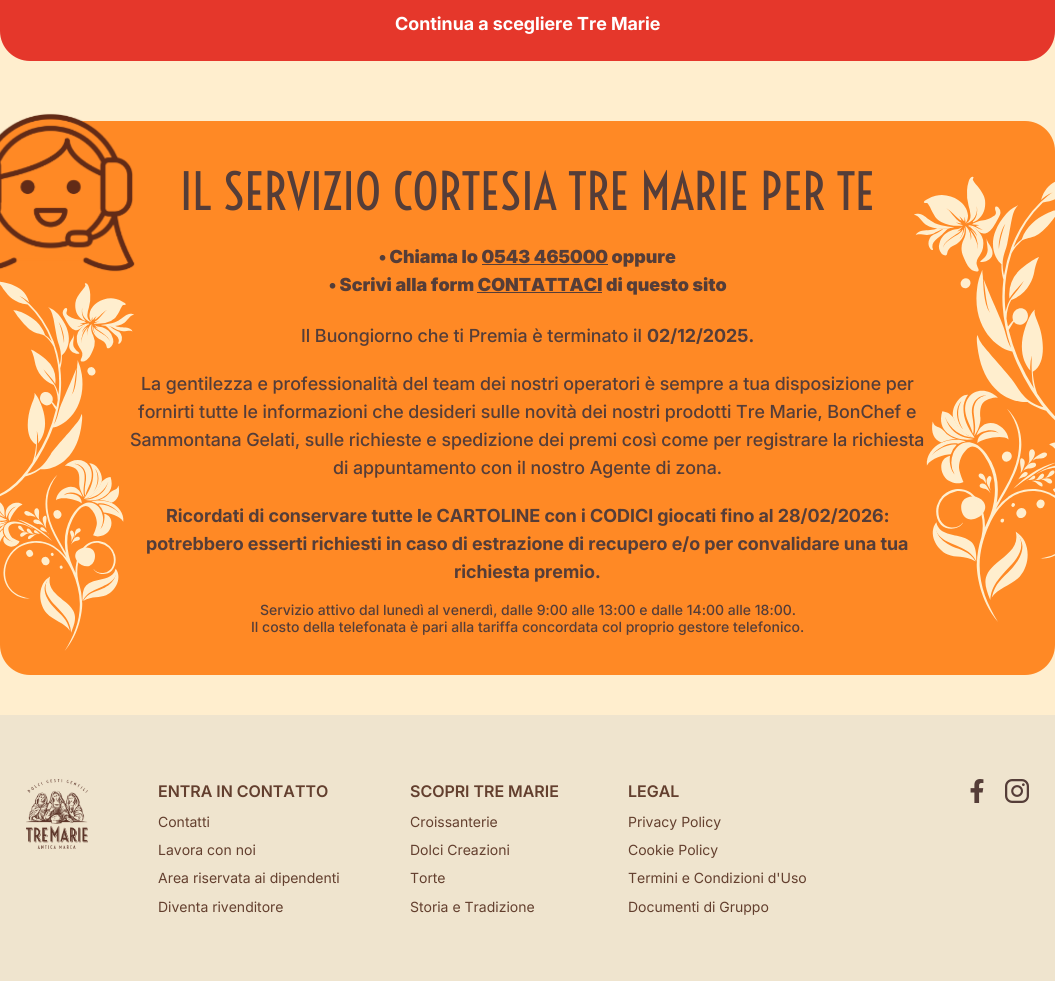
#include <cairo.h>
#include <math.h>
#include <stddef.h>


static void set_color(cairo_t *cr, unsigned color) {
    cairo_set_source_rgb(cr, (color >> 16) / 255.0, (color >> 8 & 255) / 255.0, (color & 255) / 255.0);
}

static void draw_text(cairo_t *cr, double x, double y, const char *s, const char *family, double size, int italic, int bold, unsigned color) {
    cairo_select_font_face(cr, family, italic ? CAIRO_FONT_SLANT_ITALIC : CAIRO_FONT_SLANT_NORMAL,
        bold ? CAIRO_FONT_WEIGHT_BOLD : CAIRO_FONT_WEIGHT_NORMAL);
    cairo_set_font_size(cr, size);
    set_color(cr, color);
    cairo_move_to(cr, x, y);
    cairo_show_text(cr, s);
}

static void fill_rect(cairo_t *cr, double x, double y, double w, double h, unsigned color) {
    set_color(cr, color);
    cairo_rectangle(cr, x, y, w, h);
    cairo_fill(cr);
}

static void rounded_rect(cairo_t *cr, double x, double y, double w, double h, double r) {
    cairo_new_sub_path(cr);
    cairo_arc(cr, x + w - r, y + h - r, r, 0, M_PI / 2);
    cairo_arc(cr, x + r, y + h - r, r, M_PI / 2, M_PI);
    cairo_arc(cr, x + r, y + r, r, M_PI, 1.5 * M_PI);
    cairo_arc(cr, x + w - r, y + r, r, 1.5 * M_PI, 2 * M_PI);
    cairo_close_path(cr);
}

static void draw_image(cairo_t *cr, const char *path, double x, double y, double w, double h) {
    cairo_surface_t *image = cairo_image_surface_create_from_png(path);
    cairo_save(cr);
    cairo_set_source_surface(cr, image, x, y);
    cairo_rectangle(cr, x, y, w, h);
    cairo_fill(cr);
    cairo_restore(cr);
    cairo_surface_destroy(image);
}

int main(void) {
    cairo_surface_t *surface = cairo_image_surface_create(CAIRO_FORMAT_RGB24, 1055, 981);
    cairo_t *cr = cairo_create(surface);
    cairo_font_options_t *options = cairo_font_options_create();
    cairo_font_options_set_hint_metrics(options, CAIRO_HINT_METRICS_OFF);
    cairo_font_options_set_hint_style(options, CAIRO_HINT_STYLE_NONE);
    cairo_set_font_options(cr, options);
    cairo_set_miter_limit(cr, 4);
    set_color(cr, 0xFFEECE);
    cairo_paint(cr);
    set_color(cr, 0xE5372B);
    rounded_rect(cr, 0, -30, 1055, 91, 30);
    cairo_fill(cr);
    draw_text(cr, 395, 30, "Continua a scegliere Tre Marie", "Inter", 18, 0, 1, 0xFFFFFF);
    set_color(cr, 0xFF8925);
    rounded_rect(cr, 0, 121, 1055, 554, 30);
    cairo_fill(cr);
    draw_image(cr, "assets/img1.png", 0, 176, 1055, 475);
    draw_image(cr, "assets/img2.png", 0, 113, 135, 159);
    draw_text(cr, 180, 210, "IL SERVIZIO CORTESIA TRE MARIE PER TE", "Voltaire", 50, 0, 0, 0x553D38);
    draw_text(cr, 379, 263, "• Chiama lo 0543 465000 oppure", "Inter Black", 18, 0, 0, 0x553D38);
    fill_rect(cr, 482, 264, 126, 1, 0x553D38);
    draw_text(cr, 329, 291, "• Scrivi alla form CONTATTACI di questo sito", "Inter Black", 18, 0, 0, 0x553D38);
    fill_rect(cr, 477, 292, 125, 1, 0x553D38);
    draw_text(cr, 301, 342, "Il Buongiorno che ti Premia è terminato il", "Inter Medium", 18, 0, 0, 0x553D38);
    draw_text(cr, 647, 342, "02/12/2025.", "Inter", 18, 0, 1, 0x553D38);
    draw_text(cr, 141, 390, "La gentilezza e professionalità del team dei nostri operatori è sempre a tua disposizione per", "Inter Medium", 18, 0, 0, 0x553D38);
    draw_text(cr, 138, 418, "fornirti tutte le informazioni che desideri sulle novità dei nostri prodotti Tre Marie, BonChef e", "Inter Medium", 18, 0, 0, 0x553D38);
    draw_text(cr, 130, 446, "Sammontana Gelati, sulle richieste e spedizione dei premi così come per registrare la richiesta", "Inter Medium", 18, 0, 0, 0x553D38);
    draw_text(cr, 333, 474, "di appuntamento con il nostro Agente di zona.", "Inter Medium", 18, 0, 0, 0x553D38);
    draw_text(cr, 166, 522, "Ricordati di conservare tutte le CARTOLINE con i CODICI giocati fino al 28/02/2026:", "Inter", 18, 0, 1, 0x553D38);
    draw_text(cr, 146, 550, "potrebbero esserti richiesti in caso di estrazione di recupero e/o per convalidare una tua", "Inter", 18, 0, 1, 0x553D38);
    draw_text(cr, 454, 578, "richiesta premio.", "Inter", 18, 0, 1, 0x553D38);
    draw_text(cr, 260, 615, "Servizio attivo dal lunedì al venerdì, dalle 9:00 alle 13:00 e dalle 14:00 alle 18:00.", "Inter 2 Medium", 14, 0, 0, 0x553D38);
    draw_text(cr, 251, 632, "Il costo della telefonata è pari alla tariffa concordata col proprio gestore telefonico.", "Inter 2 Medium", 14, 0, 0, 0x553D38);
    fill_rect(cr, 0, 715, 1055, 266, 0xEFE4CE);
    draw_image(cr, "assets/img3.png", 26, 779, 62, 70);
    draw_text(cr, 158, 797, "ENTRA IN CONTATTO", "Inter SemiBold", 16, 0, 0, 0x633F2E);
    draw_text(cr, 158, 827, "Contatti", "Inter", 14, 0, 0, 0x633F2E);
    draw_text(cr, 158, 855, "Lavora con noi", "Inter", 14, 0, 0, 0x633F2E);
    draw_text(cr, 158, 883, "Area riservata ai dipendenti", "Inter", 14, 0, 0, 0x633F2E);
    draw_text(cr, 158, 912, "Diventa rivenditore", "Inter", 14, 0, 0, 0x633F2E);
    draw_text(cr, 410, 797, "SCOPRI TRE MARIE", "Inter SemiBold", 16, 0, 0, 0x633F2E);
    draw_text(cr, 410, 827, "Croissanterie", "Inter", 14, 0, 0, 0x633F2E);
    draw_text(cr, 410, 855, "Dolci Creazioni", "Inter", 14, 0, 0, 0x633F2E);
    draw_text(cr, 410, 883, "Torte", "Inter", 14, 0, 0, 0x633F2E);
    draw_text(cr, 410, 912, "Storia e Tradizione", "Inter", 14, 0, 0, 0x633F2E);
    draw_text(cr, 628, 797, "LEGAL", "Inter SemiBold", 16, 0, 0, 0x633F2E);
    draw_text(cr, 628, 827, "Privacy Policy", "Inter", 14, 0, 0, 0x633F2E);
    draw_text(cr, 628, 855, "Cookie Policy", "Inter", 14, 0, 0, 0x633F2E);
    draw_text(cr, 628, 883, "Termini e Condizioni d'Uso", "Inter", 14, 0, 0, 0x633F2E);
    draw_text(cr, 628, 912, "Documenti di Gruppo", "Inter", 14, 0, 0, 0x633F2E);
    draw_image(cr, "assets/img4.png", 970, 779, 14, 24);
    draw_image(cr, "assets/img5.png", 1005, 779, 24, 24);
    cairo_surface_write_to_png(surface, "output.png");
    cairo_font_options_destroy(options);
    cairo_destroy(cr);
    cairo_surface_destroy(surface);
    return 0;
}
